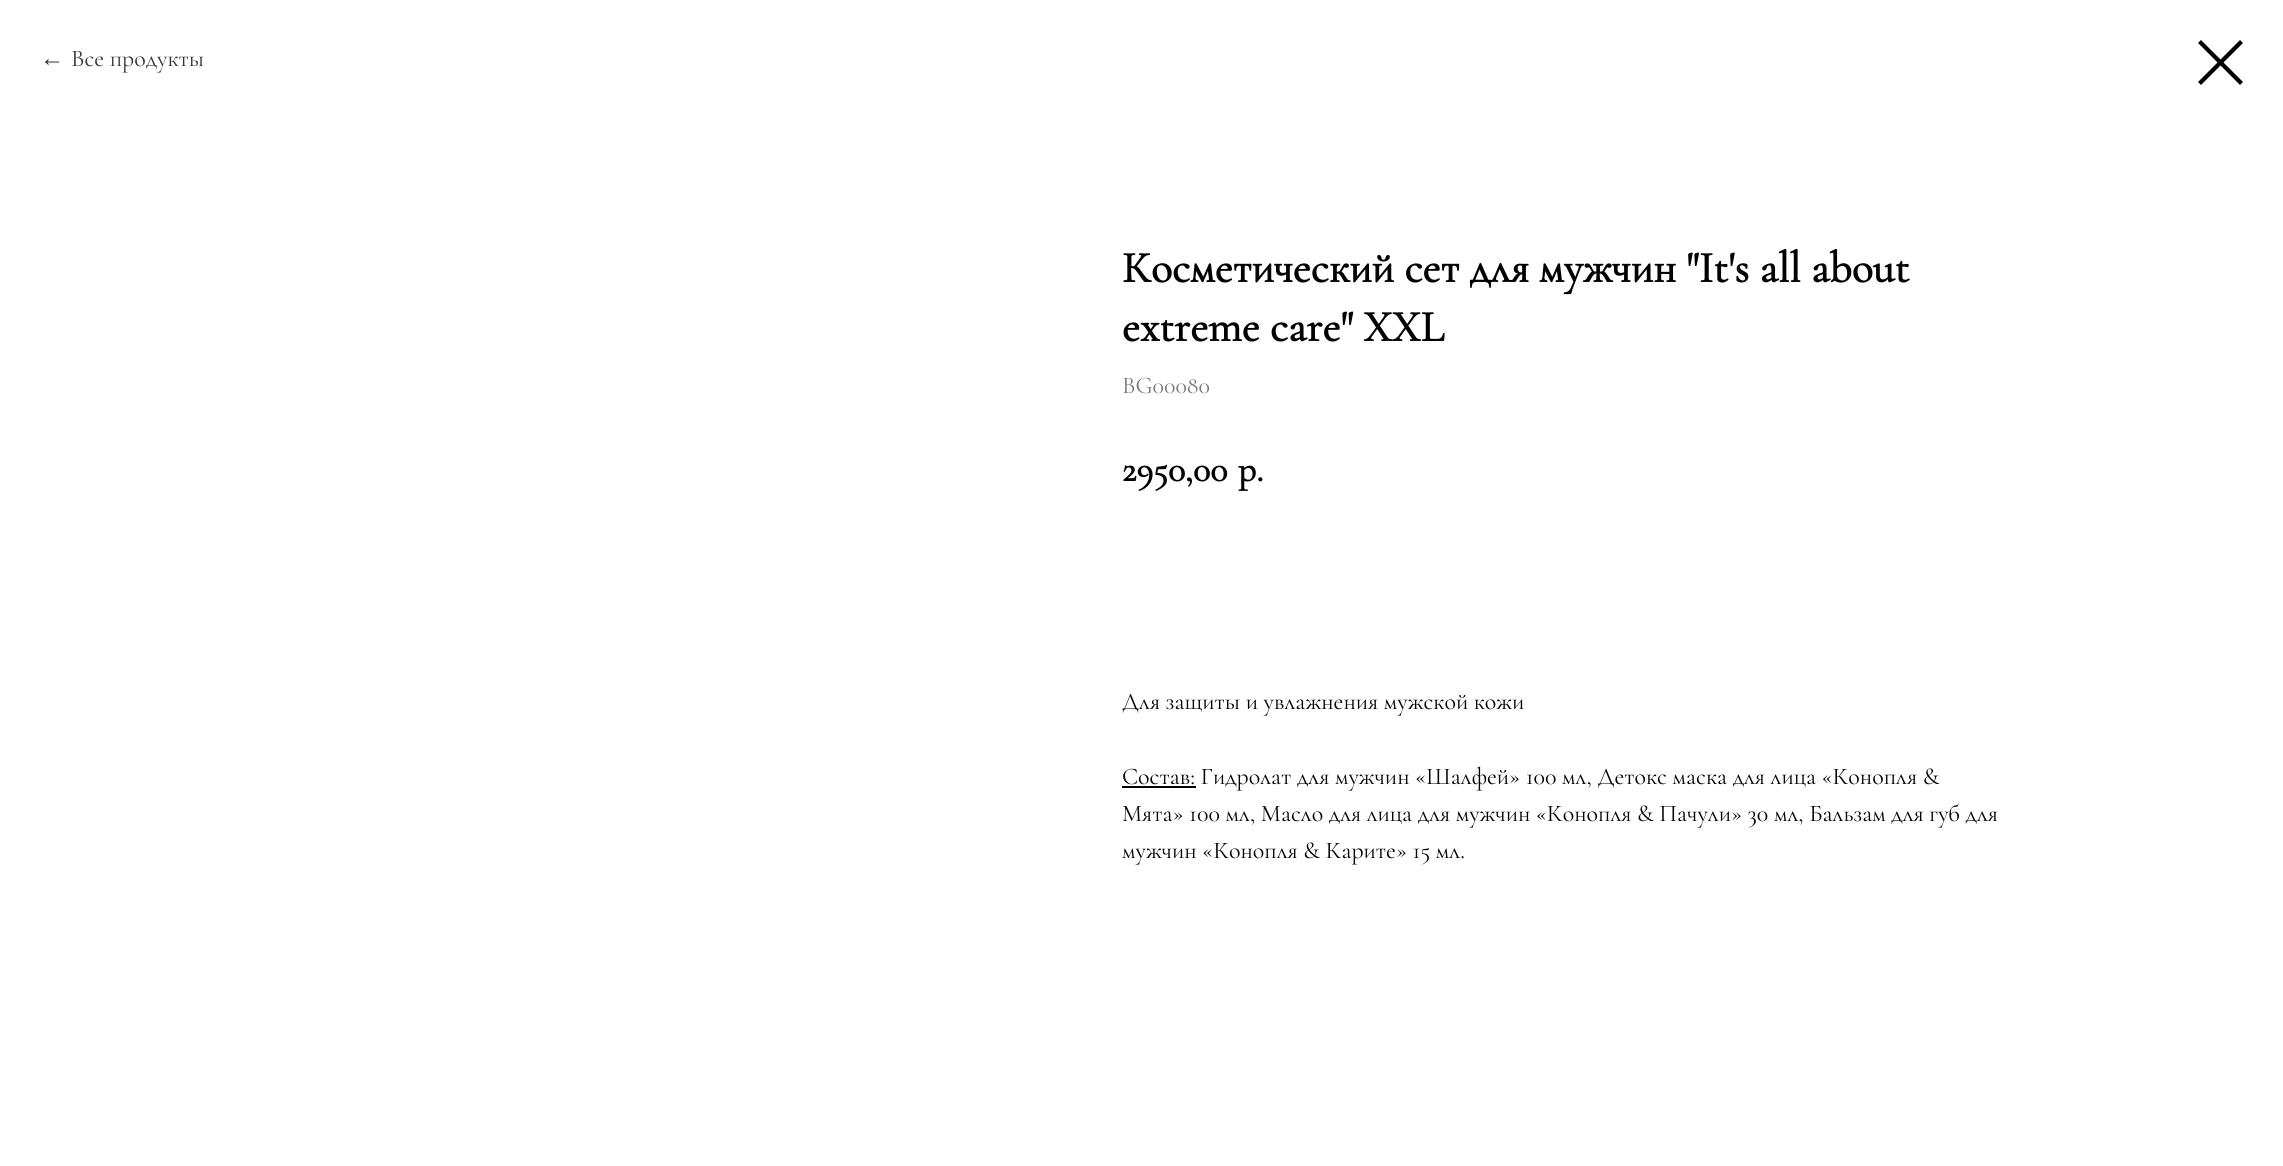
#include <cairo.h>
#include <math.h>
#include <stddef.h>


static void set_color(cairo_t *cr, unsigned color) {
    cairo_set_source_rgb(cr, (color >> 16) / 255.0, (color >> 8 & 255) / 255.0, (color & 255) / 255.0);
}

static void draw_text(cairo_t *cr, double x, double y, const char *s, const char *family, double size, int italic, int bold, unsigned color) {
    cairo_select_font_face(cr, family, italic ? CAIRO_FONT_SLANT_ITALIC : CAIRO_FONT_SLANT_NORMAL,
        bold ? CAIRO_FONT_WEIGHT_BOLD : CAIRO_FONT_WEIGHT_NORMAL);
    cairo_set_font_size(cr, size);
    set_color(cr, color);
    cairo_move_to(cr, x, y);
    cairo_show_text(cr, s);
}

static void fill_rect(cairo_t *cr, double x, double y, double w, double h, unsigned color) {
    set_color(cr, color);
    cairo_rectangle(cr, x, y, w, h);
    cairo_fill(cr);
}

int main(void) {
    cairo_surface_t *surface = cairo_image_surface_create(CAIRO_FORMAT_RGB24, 2283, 1166);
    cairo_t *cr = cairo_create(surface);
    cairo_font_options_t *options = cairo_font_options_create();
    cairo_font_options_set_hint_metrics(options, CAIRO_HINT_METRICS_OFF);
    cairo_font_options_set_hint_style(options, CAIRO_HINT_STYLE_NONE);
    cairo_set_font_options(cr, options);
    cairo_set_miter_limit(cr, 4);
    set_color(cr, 0xFFFFFF);
    cairo_paint(cr);
    draw_text(cr, 40, 66, "←", "Liberation Sans", 24, 0, 0, 0x333333);
    draw_text(cr, 71, 66, "Все продукты", "Cormorant Garamond", 24, 0, 0, 0x333333);
    set_color(cr, 0x000000);
    cairo_set_fill_rule(cr, CAIRO_FILL_RULE_EVEN_ODD);
    cairo_new_path(cr);
    cairo_move_to(cr, 2198, 43);
    cairo_line_to(cr, 2201, 40);
    cairo_line_to(cr, 2243, 82);
    cairo_line_to(cr, 2240, 85);
    cairo_close_path(cr);
    cairo_fill(cr);
    cairo_new_path(cr);
    cairo_move_to(cr, 2240, 40);
    cairo_line_to(cr, 2243, 43);
    cairo_line_to(cr, 2201, 85);
    cairo_line_to(cr, 2198, 82);
    cairo_close_path(cr);
    cairo_fill(cr);
    draw_text(cr, 1122, 282, "Косметический сет для мужчин \"It's all about", "Cormorant Garamond", 44, 0, 1, 0x000000);
    draw_text(cr, 1122, 341, "extreme care\" XXL", "Cormorant Garamond", 44, 0, 1, 0x000000);
    draw_text(cr, 1122, 393, "BG00080", "Cormorant Garamond", 24, 0, 0, 0x777777);
    draw_text(cr, 1122, 481, "2950,00", "Cormorant Garamond", 36, 0, 1, 0x000000);
    draw_text(cr, 1238, 481, "р.", "Cormorant Garamond", 36, 0, 1, 0x000000);
    draw_text(cr, 1122, 709, "Для защиты и увлажнения мужской кожи", "Cormorant Garamond", 24, 0, 0, 0x000000);
    fill_rect(cr, 1122, 786, 74, 2, 0x000000);
    draw_text(cr, 1122, 784, "Состав: Гидролат для мужчин «Шалфей» 100 мл, Детокс маска для лица «Конопля &", "Cormorant Garamond", 24, 0, 0, 0x000000);
    draw_text(cr, 1122, 821, "Мята» 100 мл, Масло для лица для мужчин «Конопля & Пачули» 30 мл, Бальзам для губ для", "Cormorant Garamond", 24, 0, 0, 0x000000);
    draw_text(cr, 1122, 858, "мужчин «Конопля & Карите» 15 мл.", "Cormorant Garamond", 24, 0, 0, 0x000000);
    cairo_surface_write_to_png(surface, "output.png");
    cairo_font_options_destroy(options);
    cairo_destroy(cr);
    cairo_surface_destroy(surface);
    return 0;
}
